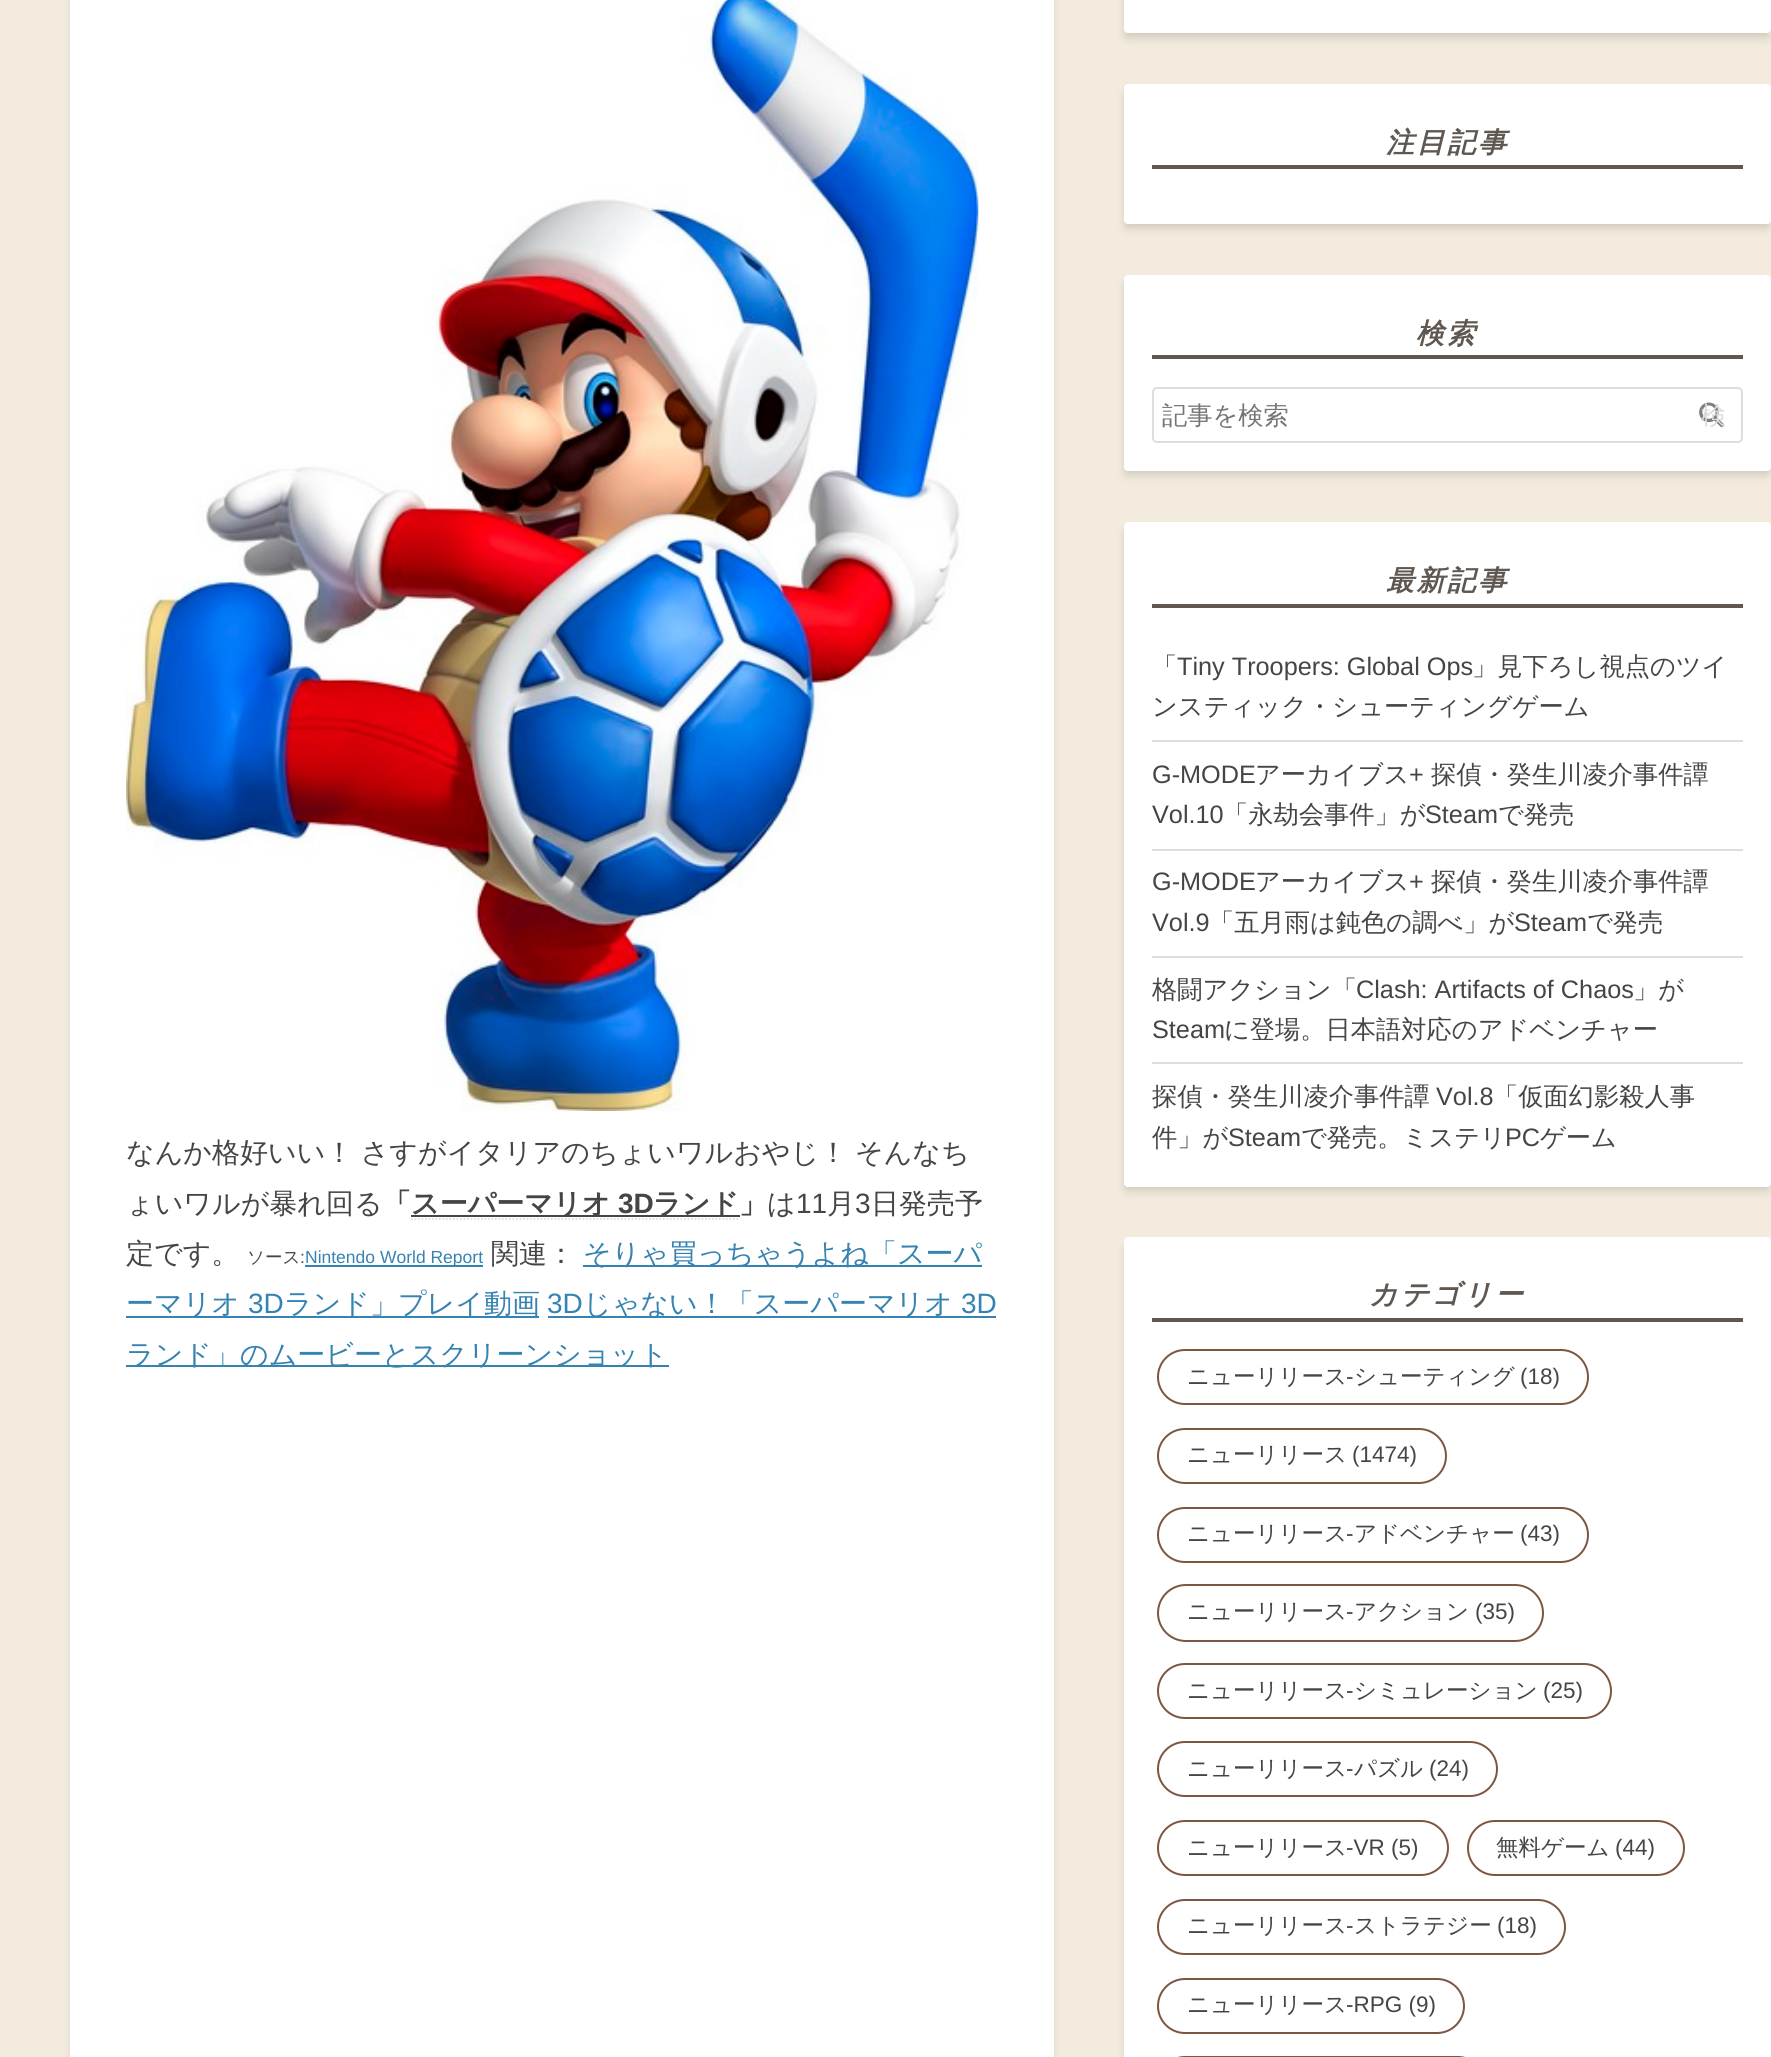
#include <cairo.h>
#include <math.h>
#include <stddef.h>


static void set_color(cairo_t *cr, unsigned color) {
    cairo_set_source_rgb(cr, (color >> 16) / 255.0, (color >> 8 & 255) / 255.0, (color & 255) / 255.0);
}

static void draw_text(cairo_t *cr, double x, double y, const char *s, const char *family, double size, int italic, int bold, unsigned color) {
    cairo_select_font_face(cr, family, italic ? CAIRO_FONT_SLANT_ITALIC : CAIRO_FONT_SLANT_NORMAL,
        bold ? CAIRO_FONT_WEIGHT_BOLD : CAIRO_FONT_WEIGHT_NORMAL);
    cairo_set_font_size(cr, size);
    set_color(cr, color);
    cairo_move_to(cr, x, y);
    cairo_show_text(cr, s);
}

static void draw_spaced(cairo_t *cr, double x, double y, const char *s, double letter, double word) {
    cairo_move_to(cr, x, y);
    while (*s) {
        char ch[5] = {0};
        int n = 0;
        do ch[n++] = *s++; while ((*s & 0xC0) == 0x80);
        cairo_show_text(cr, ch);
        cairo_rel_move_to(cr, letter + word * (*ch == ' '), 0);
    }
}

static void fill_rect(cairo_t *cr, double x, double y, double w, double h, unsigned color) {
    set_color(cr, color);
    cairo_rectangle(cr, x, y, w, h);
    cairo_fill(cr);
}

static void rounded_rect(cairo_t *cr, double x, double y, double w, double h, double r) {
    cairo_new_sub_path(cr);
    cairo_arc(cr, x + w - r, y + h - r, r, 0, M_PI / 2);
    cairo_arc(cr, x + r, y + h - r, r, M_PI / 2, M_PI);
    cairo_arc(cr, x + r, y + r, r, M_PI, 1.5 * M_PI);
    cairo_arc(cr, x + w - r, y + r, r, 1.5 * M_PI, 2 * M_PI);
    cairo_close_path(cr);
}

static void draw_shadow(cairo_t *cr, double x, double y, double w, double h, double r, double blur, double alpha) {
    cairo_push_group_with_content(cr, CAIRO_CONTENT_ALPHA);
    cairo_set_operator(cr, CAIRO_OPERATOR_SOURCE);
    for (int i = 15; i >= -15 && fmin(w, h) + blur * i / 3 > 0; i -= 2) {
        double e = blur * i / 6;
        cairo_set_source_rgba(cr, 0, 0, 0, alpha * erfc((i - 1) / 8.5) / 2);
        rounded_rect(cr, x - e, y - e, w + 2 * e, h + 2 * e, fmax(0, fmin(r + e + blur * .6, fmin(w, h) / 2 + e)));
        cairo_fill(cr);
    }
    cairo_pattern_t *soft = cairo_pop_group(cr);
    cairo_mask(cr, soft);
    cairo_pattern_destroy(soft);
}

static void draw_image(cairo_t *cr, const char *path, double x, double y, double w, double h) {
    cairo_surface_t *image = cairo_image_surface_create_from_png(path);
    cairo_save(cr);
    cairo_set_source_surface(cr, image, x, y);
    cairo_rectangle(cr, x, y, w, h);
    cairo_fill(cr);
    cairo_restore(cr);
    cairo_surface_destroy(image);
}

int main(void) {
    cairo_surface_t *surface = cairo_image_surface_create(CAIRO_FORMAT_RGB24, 1771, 2057);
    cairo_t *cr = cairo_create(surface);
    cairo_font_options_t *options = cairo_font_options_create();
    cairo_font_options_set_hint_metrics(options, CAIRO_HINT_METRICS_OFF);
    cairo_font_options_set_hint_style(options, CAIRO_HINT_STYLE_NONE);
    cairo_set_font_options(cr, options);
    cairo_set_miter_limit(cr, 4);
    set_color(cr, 0xF3EBDD);
    cairo_paint(cr);
    set_color(cr, 0x000000);
    draw_shadow(cr, 72, -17, 980, 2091, 2, 5, 0.1);
    fill_rect(cr, 70, 0, 984, 2057, 0xFFFFFF);
    draw_image(cr, "assets/img1.png", 126, 0, 853, 1111);
    cairo_select_font_face(cr, "WenQuanYi Zen Hei Medium", CAIRO_FONT_SLANT_NORMAL, CAIRO_FONT_WEIGHT_NORMAL);
    cairo_set_font_size(cr, 28);
    set_color(cr, 0x454545);
    draw_spaced(cr, 126, 1162, "なんか格好いい！ さすがイタリアのちょいワルおやじ！", 0, -1);
    draw_text(cr, 855, 1162, "そんなち", "WenQuanYi Zen Hei Medium", 28, 0, 0, 0x454545);
    draw_text(cr, 126, 1213, "ょいワルが暴れ回る", "WenQuanYi Zen Hei Medium", 28, 0, 0, 0x454545);
    draw_text(cr, 383, 1213, "「", "WenQuanYi Zen Hei", 28, 0, 1, 0x454545);
    fill_rect(cr, 411, 1215, 329, 2, 0x454545);
    draw_text(cr, 411, 1213, "スーパーマリオ", "WenQuanYi Zen Hei", 28, 0, 1, 0x454545);
    cairo_new_path(cr);
    cairo_move_to(cr, 411, 1219);
    cairo_line_to(cr, 740, 1219);
    set_color(cr, 0xDDDDDD);
    cairo_set_line_width(cr, 1.8);
    cairo_set_dash(cr, (double[]){1.75, 1.75}, 2, 0);
    cairo_stroke(cr);
    draw_text(cr, 618, 1213, "3D", "Liberation Sans", 28, 0, 1, 0x454545);
    draw_text(cr, 653, 1213, "ランド」", "WenQuanYi Zen Hei", 28, 0, 1, 0x454545);
    draw_text(cr, 767, 1213, "は", "WenQuanYi Zen Hei Medium", 28, 0, 0, 0x454545);
    draw_text(cr, 796, 1213, "11", "Liberation Sans", 28, 0, 0, 0x454545);
    draw_text(cr, 827, 1213, "月", "WenQuanYi Zen Hei Medium", 28, 0, 0, 0x454545);
    draw_text(cr, 855, 1213, "3", "Liberation Sans", 28, 0, 0, 0x454545);
    draw_text(cr, 871, 1213, "日発売予", "WenQuanYi Zen Hei Medium", 28, 0, 0, 0x454545);
    draw_text(cr, 126, 1263, "定です。", "WenQuanYi Zen Hei Medium", 28, 0, 0, 0x454545);
    draw_text(cr, 247, 1263, "ソース", "WenQuanYi Zen Hei Medium", 17.5, 0, 0, 0x454545);
    draw_text(cr, 300, 1263, ":", "Liberation Sans", 17.5, 0, 0, 0x454545);
    fill_rect(cr, 305, 1265, 178, 2, 0x3583B0);
    draw_text(cr, 305, 1263, "Nintendo World Report", "Liberation Sans", 17.5, 0, 0, 0x3583B0);
    draw_text(cr, 491, 1263, "関連：", "WenQuanYi Zen Hei Medium", 28, 0, 0, 0x454545);
    fill_rect(cr, 583, 1265, 399, 2, 0x3583B0);
    draw_text(cr, 583, 1263, "そりゃ買っちゃうよね「スーパ", "WenQuanYi Zen Hei Medium", 28, 0, 0, 0x3583B0);
    fill_rect(cr, 126, 1316, 413, 2, 0x3583B0);
    draw_text(cr, 126, 1313, "ーマリオ", "WenQuanYi Zen Hei Medium", 28, 0, 0, 0x3583B0);
    draw_text(cr, 248, 1313, "3D", "Liberation Sans", 28, 0, 0, 0x3583B0);
    draw_text(cr, 284, 1313, "ランド」プレイ動画", "WenQuanYi Zen Hei Medium", 28, 0, 0, 0x3583B0);
    draw_text(cr, 547, 1313, "3D", "Liberation Sans", 28, 0, 0, 0x3583B0);
    fill_rect(cr, 548, 1316, 448, 2, 0x3583B0);
    draw_text(cr, 583, 1313, "じゃない！「スーパーマリオ", "WenQuanYi Zen Hei Medium", 28, 0, 0, 0x3583B0);
    draw_text(cr, 961, 1313, "3D", "Liberation Sans", 28, 0, 0, 0x3583B0);
    fill_rect(cr, 126, 1365, 543, 2, 0x3583B0);
    draw_text(cr, 126, 1364, "ランド」のムービーとスクリーンショット", "WenQuanYi Zen Hei Medium", 28, 0, 0, 0x3583B0);
    set_color(cr, 0x000000);
    draw_shadow(cr, 1125, -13, 644, 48, 2, 3.5, 0.06);
    draw_shadow(cr, 1125, -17, 644, 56, 2, 5, 0.1);
    set_color(cr, 0xFFFFFF);
    rounded_rect(cr, 1124, -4, 647, 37, 4);
    cairo_fill(cr);
    set_color(cr, 0x000000);
    draw_shadow(cr, 1125, 89, 644, 137, 2, 3.5, 0.06);
    draw_shadow(cr, 1125, 93, 644, 136, 2, 5, 0.1);
    set_color(cr, 0xFFFFFF);
    rounded_rect(cr, 1124, 84, 647, 140, 4);
    cairo_fill(cr);
    fill_rect(cr, 1152, 165, 591, 4, 0x5F5750);
    cairo_select_font_face(cr, "WenQuanYi Zen Hei", CAIRO_FONT_SLANT_ITALIC, CAIRO_FONT_WEIGHT_BOLD);
    draw_spaced(cr, 1386, 152, "注目記事", 2.75, 0);
    set_color(cr, 0x000000);
    draw_shadow(cr, 1125, 280, 644, 193, 2, 3.5, 0.06);
    draw_shadow(cr, 1125, 284, 644, 192, 2, 5, 0.1);
    set_color(cr, 0xFFFFFF);
    rounded_rect(cr, 1124, 275, 647, 196, 4);
    cairo_fill(cr);
    fill_rect(cr, 1152, 355, 591, 4, 0x5F5750);
    draw_spaced(cr, 1416, 343, "検索", 2.75, 0);
    rounded_rect(cr, 1153, 388, 589, 54, 4);
    set_color(cr, 0xDDDDDD);
    cairo_set_line_width(cr, 2);
    cairo_set_dash(cr, NULL, 0, 0);
    cairo_stroke(cr);
    draw_text(cr, 1162, 424, "記事を検索", "WenQuanYi Zen Hei Medium", 25.25, 0, 0, 0x757575);
    draw_image(cr, "assets/img2.png", 1699, 402, 25, 25);
    draw_text(cr, 1701, 424, "検", "WenQuanYi Zen Hei Medium", 25.25, 0, 0, 0xDBDBDB);
    set_color(cr, 0x000000);
    draw_shadow(cr, 1125, 527, 644, 661, 2, 3.5, 0.06);
    draw_shadow(cr, 1125, 530, 644, 662, 2, 5, 0.1);
    set_color(cr, 0xFFFFFF);
    rounded_rect(cr, 1124, 522, 647, 665, 4);
    cairo_fill(cr);
    fill_rect(cr, 1152, 604, 591, 4, 0x5F5750);
    cairo_select_font_face(cr, "WenQuanYi Zen Hei", CAIRO_FONT_SLANT_ITALIC, CAIRO_FONT_WEIGHT_BOLD);
    cairo_set_font_size(cr, 28);
    draw_spaced(cr, 1386, 590, "最新記事", 2.75, 0);
    fill_rect(cr, 1152, 740, 591, 2, 0xDDDDDD);
    draw_text(cr, 1152, 675, "「", "WenQuanYi Zen Hei Medium", 25.25, 0, 0, 0x454545);
    draw_text(cr, 1177, 675, "Tiny Troopers: Global Ops", "Liberation Sans", 25.25, 0, 0, 0x454545);
    draw_text(cr, 1472, 675, "」見下ろし視点のツイ", "WenQuanYi Zen Hei Medium", 25.25, 0, 0, 0x454545);
    draw_text(cr, 1152, 715, "ンスティック・シューティングゲーム", "WenQuanYi Zen Hei Medium", 25.25, 0, 0, 0x454545);
    fill_rect(cr, 1152, 849, 591, 2, 0xDDDDDD);
    draw_text(cr, 1152, 783, "G-MODE", "Liberation Sans", 25.25, 0, 0, 0x454545);
    draw_text(cr, 1255, 783, "アーカイブス", "WenQuanYi Zen Hei Medium", 25.25, 0, 0, 0x454545);
    draw_text(cr, 1409, 783, "+", "Liberation Sans", 25.25, 0, 0, 0x454545);
    draw_text(cr, 1431, 783, "探偵・癸生川凌介事件譚", "WenQuanYi Zen Hei Medium", 25.25, 0, 0, 0x454545);
    draw_text(cr, 1152, 823, "Vol.10", "Liberation Sans", 25.25, 0, 0, 0x454545);
    draw_text(cr, 1223, 823, "「永劫会事件」が", "WenQuanYi Zen Hei Medium", 25.25, 0, 0, 0x454545);
    draw_text(cr, 1425, 823, "Steam", "Liberation Sans", 25.25, 0, 0, 0x454545);
    draw_text(cr, 1498, 823, "で発売", "WenQuanYi Zen Hei Medium", 25.25, 0, 0, 0x454545);
    fill_rect(cr, 1152, 956, 591, 2, 0xDDDDDD);
    draw_text(cr, 1152, 890, "G-MODE", "Liberation Sans", 25.25, 0, 0, 0x454545);
    draw_text(cr, 1255, 890, "アーカイブス", "WenQuanYi Zen Hei Medium", 25.25, 0, 0, 0x454545);
    draw_text(cr, 1409, 890, "+", "Liberation Sans", 25.25, 0, 0, 0x454545);
    draw_text(cr, 1431, 890, "探偵・癸生川凌介事件譚", "WenQuanYi Zen Hei Medium", 25.25, 0, 0, 0x454545);
    draw_text(cr, 1152, 931, "Vol.9", "Liberation Sans", 25.25, 0, 0, 0x454545);
    draw_text(cr, 1209, 931, "「五月雨は鈍色の調べ」が", "WenQuanYi Zen Hei Medium", 25.25, 0, 0, 0x454545);
    draw_text(cr, 1514, 931, "Steam", "Liberation Sans", 25.25, 0, 0, 0x454545);
    draw_text(cr, 1587, 931, "で発売", "WenQuanYi Zen Hei Medium", 25.25, 0, 0, 0x454545);
    fill_rect(cr, 1152, 1062, 591, 2, 0xDDDDDD);
    draw_text(cr, 1152, 998, "格闘アクション「", "WenQuanYi Zen Hei Medium", 25.25, 0, 0, 0x454545);
    draw_text(cr, 1356, 998, "Clash: Artifacts of Chaos", "Liberation Sans", 25.25, 0, 0, 0x454545);
    draw_text(cr, 1633, 998, "」が", "WenQuanYi Zen Hei Medium", 25.25, 0, 0, 0x454545);
    draw_text(cr, 1152, 1038, "Steam", "Liberation Sans", 25.25, 0, 0, 0x454545);
    draw_text(cr, 1224, 1038, "に登場。日本語対応のアドベンチャー", "WenQuanYi Zen Hei Medium", 25.25, 0, 0, 0x454545);
    draw_text(cr, 1152, 1105, "探偵・癸生川凌介事件譚", "WenQuanYi Zen Hei Medium", 25.25, 0, 0, 0x454545);
    draw_text(cr, 1436, 1105, "Vol.8", "Liberation Sans", 25.25, 0, 0, 0x454545);
    draw_text(cr, 1493, 1105, "「仮面幻影殺人事", "WenQuanYi Zen Hei Medium", 25.25, 0, 0, 0x454545);
    draw_text(cr, 1152, 1146, "件」が", "WenQuanYi Zen Hei Medium", 25.25, 0, 0, 0x454545);
    draw_text(cr, 1228, 1146, "Steam", "Liberation Sans", 25.25, 0, 0, 0x454545);
    draw_text(cr, 1301, 1146, "で発売。ミステリ", "WenQuanYi Zen Hei Medium", 25.25, 0, 0, 0x454545);
    draw_text(cr, 1505, 1146, "PC", "Liberation Sans", 25.25, 0, 0, 0x454545);
    draw_text(cr, 1540, 1146, "ゲーム", "WenQuanYi Zen Hei Medium", 25.25, 0, 0, 0x454545);
    set_color(cr, 0x000000);
    draw_shadow(cr, 1125, 1246, 644, 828, 2, 5, 0.1);
    set_color(cr, 0xFFFFFF);
    rounded_rect(cr, 1124, 1237, 647, 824, 4);
    cairo_fill(cr);
    fill_rect(cr, 1152, 1318, 591, 4, 0x5F5750);
    cairo_select_font_face(cr, "WenQuanYi Zen Hei", CAIRO_FONT_SLANT_ITALIC, CAIRO_FONT_WEIGHT_BOLD);
    cairo_set_font_size(cr, 28);
    draw_spaced(cr, 1369, 1304, "カテゴリー", 2.75, 0);
    rounded_rect(cr, 1158, 1350, 430, 54, 27);
    set_color(cr, 0x7D5642);
    cairo_stroke(cr);
    draw_text(cr, 1187, 1384, "ニューリリース", "WenQuanYi Zen Hei Medium", 22.5, 0, 0, 0x454545);
    draw_text(cr, 1346, 1384, "-", "Liberation Sans", 22.5, 0, 0, 0x454545);
    draw_text(cr, 1354, 1384, "シューティング", "WenQuanYi Zen Hei Medium", 22.5, 0, 0, 0x454545);
    draw_text(cr, 1520, 1384, "(18)", "Liberation Sans", 22.5, 0, 0, 0x454545);
    rounded_rect(cr, 1158, 1429, 288, 54, 27);
    set_color(cr, 0x7D5642);
    cairo_stroke(cr);
    draw_text(cr, 1187, 1462, "ニューリリース", "WenQuanYi Zen Hei Medium", 22.5, 0, 0, 0x454545);
    draw_text(cr, 1352, 1462, "(1474)", "Liberation Sans", 22.5, 0, 0, 0x454545);
    rounded_rect(cr, 1158, 1508, 430, 54, 27);
    set_color(cr, 0x7D5642);
    cairo_stroke(cr);
    draw_text(cr, 1187, 1541, "ニューリリース", "WenQuanYi Zen Hei Medium", 22.5, 0, 0, 0x454545);
    draw_text(cr, 1346, 1541, "-", "Liberation Sans", 22.5, 0, 0, 0x454545);
    draw_text(cr, 1354, 1541, "アドベンチャー", "WenQuanYi Zen Hei Medium", 22.5, 0, 0, 0x454545);
    draw_text(cr, 1520, 1541, "(43)", "Liberation Sans", 22.5, 0, 0, 0x454545);
    rounded_rect(cr, 1158, 1585, 385, 56, 28);
    set_color(cr, 0x7D5642);
    cairo_stroke(cr);
    draw_text(cr, 1187, 1619, "ニューリリース", "WenQuanYi Zen Hei Medium", 22.5, 0, 0, 0x454545);
    draw_text(cr, 1346, 1619, "-", "Liberation Sans", 22.5, 0, 0, 0x454545);
    draw_text(cr, 1354, 1619, "アクション", "WenQuanYi Zen Hei Medium", 22.5, 0, 0, 0x454545);
    draw_text(cr, 1475, 1619, "(35)", "Liberation Sans", 22.5, 0, 0, 0x454545);
    rounded_rect(cr, 1158, 1664, 453, 54, 27);
    set_color(cr, 0x7D5642);
    cairo_stroke(cr);
    draw_text(cr, 1187, 1698, "ニューリリース", "WenQuanYi Zen Hei Medium", 22.5, 0, 0, 0x454545);
    draw_text(cr, 1346, 1698, "-", "Liberation Sans", 22.5, 0, 0, 0x454545);
    draw_text(cr, 1354, 1698, "シミュレーション", "WenQuanYi Zen Hei Medium", 22.5, 0, 0, 0x454545);
    draw_text(cr, 1543, 1698, "(25)", "Liberation Sans", 22.5, 0, 0, 0x454545);
    rounded_rect(cr, 1158, 1742, 339, 54, 27);
    set_color(cr, 0x7D5642);
    cairo_stroke(cr);
    draw_text(cr, 1187, 1776, "ニューリリース", "WenQuanYi Zen Hei Medium", 22.5, 0, 0, 0x454545);
    draw_text(cr, 1346, 1776, "-", "Liberation Sans", 22.5, 0, 0, 0x454545);
    draw_text(cr, 1354, 1776, "パズル", "WenQuanYi Zen Hei Medium", 22.5, 0, 0, 0x454545);
    draw_text(cr, 1429, 1776, "(24)", "Liberation Sans", 22.5, 0, 0, 0x454545);
    rounded_rect(cr, 1158, 1821, 290, 54, 27);
    set_color(cr, 0x7D5642);
    cairo_stroke(cr);
    draw_text(cr, 1187, 1855, "ニューリリース", "WenQuanYi Zen Hei Medium", 22.5, 0, 0, 0x454545);
    draw_text(cr, 1346, 1855, "-VR (5)", "Liberation Sans", 22.5, 0, 0, 0x454545);
    rounded_rect(cr, 1468, 1821, 216, 54, 27);
    set_color(cr, 0x7D5642);
    cairo_stroke(cr);
    draw_text(cr, 1496, 1855, "無料ゲーム", "WenQuanYi Zen Hei Medium", 22.5, 0, 0, 0x454545);
    draw_text(cr, 1615, 1855, "(44)", "Liberation Sans", 22.5, 0, 0, 0x454545);
    rounded_rect(cr, 1158, 1900, 407, 54, 27);
    set_color(cr, 0x7D5642);
    cairo_stroke(cr);
    draw_text(cr, 1187, 1933, "ニューリリース", "WenQuanYi Zen Hei Medium", 22.5, 0, 0, 0x454545);
    draw_text(cr, 1346, 1933, "-", "Liberation Sans", 22.5, 0, 0, 0x454545);
    draw_text(cr, 1354, 1933, "ストラテジー", "WenQuanYi Zen Hei Medium", 22.5, 0, 0, 0x454545);
    draw_text(cr, 1497, 1933, "(18)", "Liberation Sans", 22.5, 0, 0, 0x454545);
    rounded_rect(cr, 1158, 1979, 306, 54, 27);
    set_color(cr, 0x7D5642);
    cairo_stroke(cr);
    draw_text(cr, 1187, 2012, "ニューリリース", "WenQuanYi Zen Hei Medium", 22.5, 0, 0, 0x454545);
    draw_text(cr, 1346, 2012, "-RPG (9)", "Liberation Sans", 22.5, 0, 0, 0x454545);
    rounded_rect(cr, 1158, 2057, 327, 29, 27);
    set_color(cr, 0x7D5642);
    cairo_stroke(cr);
    cairo_surface_write_to_png(surface, "output.png");
    cairo_font_options_destroy(options);
    cairo_destroy(cr);
    cairo_surface_destroy(surface);
    return 0;
}
